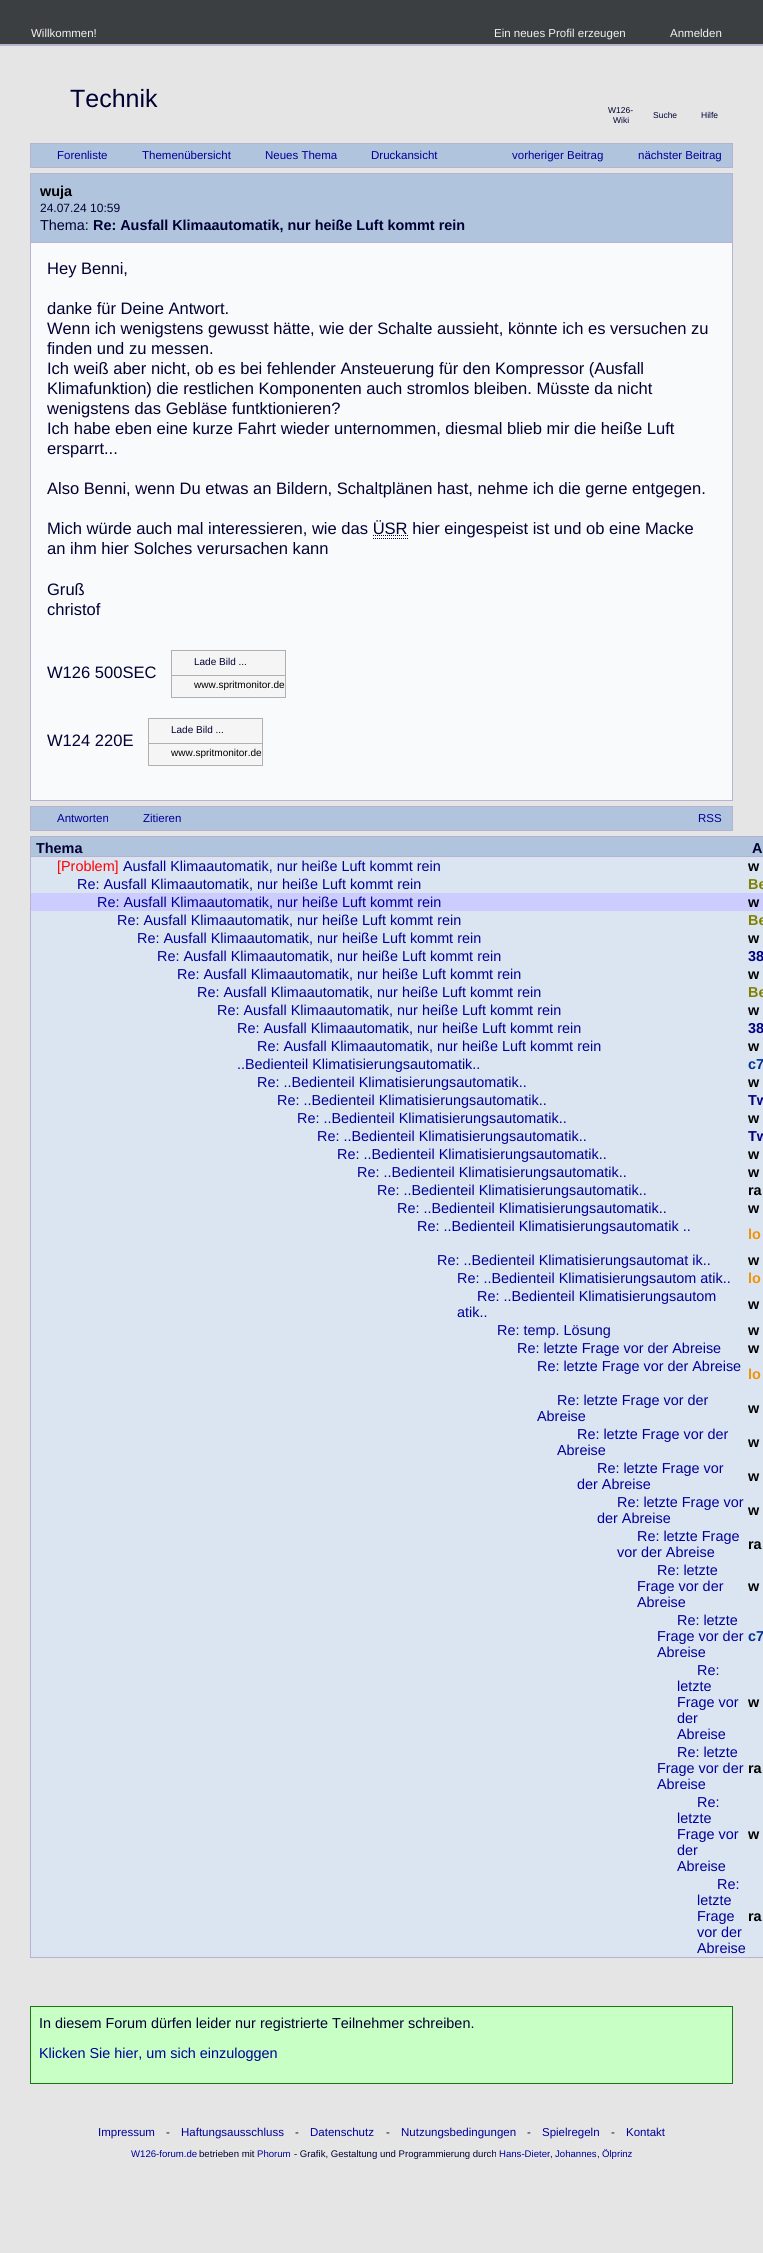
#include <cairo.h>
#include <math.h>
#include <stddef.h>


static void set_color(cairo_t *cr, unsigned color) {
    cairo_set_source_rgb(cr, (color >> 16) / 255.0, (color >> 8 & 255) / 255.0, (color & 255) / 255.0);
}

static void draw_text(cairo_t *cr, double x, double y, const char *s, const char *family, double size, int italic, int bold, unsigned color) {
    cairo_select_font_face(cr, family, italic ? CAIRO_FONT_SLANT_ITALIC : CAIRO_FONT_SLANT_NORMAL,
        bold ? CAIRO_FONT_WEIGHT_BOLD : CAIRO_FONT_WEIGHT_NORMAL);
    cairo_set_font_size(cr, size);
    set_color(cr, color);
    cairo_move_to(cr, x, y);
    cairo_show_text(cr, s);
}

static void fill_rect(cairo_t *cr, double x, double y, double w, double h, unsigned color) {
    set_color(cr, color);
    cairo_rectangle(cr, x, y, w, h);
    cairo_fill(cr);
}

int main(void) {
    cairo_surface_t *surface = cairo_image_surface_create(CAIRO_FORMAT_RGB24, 763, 2253);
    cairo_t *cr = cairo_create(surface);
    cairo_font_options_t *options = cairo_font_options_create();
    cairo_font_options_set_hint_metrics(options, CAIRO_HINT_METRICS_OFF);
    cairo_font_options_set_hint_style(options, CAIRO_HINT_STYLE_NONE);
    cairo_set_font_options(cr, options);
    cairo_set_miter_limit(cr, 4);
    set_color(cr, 0xE5E5E5);
    cairo_paint(cr);
    fill_rect(cr, 0, 0, 763, 44, 0x3C3F42);
    fill_rect(cr, 0, 44, 763, 2, 0xB7B2CF);
    draw_text(cr, 31, 37, "Willkommen!", "Liberation Sans", 11.5, 0, 0, 0xF1F1F1);
    draw_text(cr, 494, 37, "Ein neues Profil erzeugen", "Liberation Sans", 11.5, 0, 0, 0xF1F1F1);
    draw_text(cr, 670, 37, "Anmelden", "Liberation Sans", 11.5, 0, 0, 0xF1F1F1);
    draw_text(cr, 70, 107, "Technik", "Liberation Sans", 25, 0, 0, 0x000033);
    draw_text(cr, 608, 113, "W126-", "Liberation Sans", 8.5, 0, 0, 0x000033);
    draw_text(cr, 613, 123, "Wiki", "Liberation Sans", 8.5, 0, 0, 0x000033);
    draw_text(cr, 653, 118, "Suche", "Liberation Sans", 8.5, 0, 0, 0x000033);
    draw_text(cr, 701, 118, "Hilfe", "Liberation Sans", 8.5, 0, 0, 0x000033);
    set_color(cr, 0xB0C4DE);
    cairo_rectangle(cr, 30.5, 143.5, 702, 24);
    cairo_fill_preserve(cr);
    set_color(cr, 0xB7B2CF);
    cairo_set_line_width(cr, 1);
    cairo_stroke(cr);
    draw_text(cr, 57, 159, "Forenliste", "Liberation Sans", 11.5, 0, 0, 0x000099);
    draw_text(cr, 142, 159, "Themenübersicht", "Liberation Sans", 11.5, 0, 0, 0x000099);
    draw_text(cr, 265, 159, "Neues Thema", "Liberation Sans", 11.5, 0, 0, 0x000099);
    draw_text(cr, 371, 159, "Druckansicht", "Liberation Sans", 11.5, 0, 0, 0x000099);
    draw_text(cr, 512, 159, "vorheriger Beitrag", "Liberation Sans", 11.5, 0, 0, 0x000099);
    draw_text(cr, 638, 159, "nächster Beitrag", "Liberation Sans", 11.5, 0, 0, 0x000099);
    set_color(cr, 0xB0C4DE);
    cairo_rectangle(cr, 30.5, 173.5, 702, 69);
    cairo_fill_preserve(cr);
    set_color(cr, 0xB7B2CF);
    cairo_stroke(cr);
    draw_text(cr, 40, 196, "wuja", "Liberation Sans", 14.4, 0, 1, 0x000000);
    draw_text(cr, 40, 212, "24.07.24 10:59", "Liberation Sans", 12, 0, 0, 0x000033);
    draw_text(cr, 40, 230, "Thema:", "Liberation Sans", 14.4, 0, 0, 0x000033);
    draw_text(cr, 93, 230, "Re: Ausfall Klimaautomatik, nur heiße Luft kommt rein", "Liberation Sans", 14.4, 0, 1, 0x000033);
    fill_rect(cr, 31, 243, 701, 557, 0xF8FAFC);
    fill_rect(cr, 732, 243, 1, 558, 0xB7B2CF);
    fill_rect(cr, 30, 800, 703, 1, 0xB7B2CF);
    fill_rect(cr, 30, 243, 1, 558, 0xB7B2CF);
    draw_text(cr, 47, 274, "Hey Benni,", "Liberation Sans", 16.55, 0, 0, 0x000033);
    draw_text(cr, 47, 314, "danke für Deine Antwort.", "Liberation Sans", 16.55, 0, 0, 0x000033);
    draw_text(cr, 47, 334, "Wenn ich wenigstens gewusst hätte, wie der Schalte aussieht, könnte ich es versuchen zu", "Liberation Sans", 16.55, 0, 0, 0x000033);
    draw_text(cr, 47, 354, "finden und zu messen.", "Liberation Sans", 16.55, 0, 0, 0x000033);
    draw_text(cr, 47, 374, "Ich weiß aber nicht, ob es bei fehlender Ansteuerung für den Kompressor (Ausfall", "Liberation Sans", 16.55, 0, 0, 0x000033);
    draw_text(cr, 47, 394, "Klimafunktion) die restlichen Komponenten auch stromlos bleiben. Müsste da nicht", "Liberation Sans", 16.55, 0, 0, 0x000033);
    draw_text(cr, 47, 414, "wenigstens das Gebläse funtktionieren?", "Liberation Sans", 16.55, 0, 0, 0x000033);
    draw_text(cr, 47, 434, "Ich habe eben eine kurze Fahrt wieder unternommen, diesmal blieb mir die heiße Luft", "Liberation Sans", 16.55, 0, 0, 0x000033);
    draw_text(cr, 47, 454, "ersparrt...", "Liberation Sans", 16.55, 0, 0, 0x000033);
    draw_text(cr, 47, 494, "Also Benni, wenn Du etwas an Bildern, Schaltplänen hast, nehme ich die gerne entgegen.", "Liberation Sans", 16.55, 0, 0, 0x000033);
    draw_text(cr, 47, 534, "Mich würde auch mal interessieren, wie das ÜSR hier eingespeist ist und ob eine Macke", "Liberation Sans", 16.55, 0, 0, 0x000033);
    cairo_new_path(cr);
    cairo_move_to(cr, 373, 538.5);
    cairo_line_to(cr, 408, 538.5);
    cairo_move_to(cr, 373, 535.5);
    cairo_line_to(cr, 408, 535.5);
    cairo_set_dash(cr, (double[]){1, 1}, 2, 0);
    cairo_stroke(cr);
    draw_text(cr, 47, 554, "an ihm hier Solches verursachen kann", "Liberation Sans", 16.55, 0, 0, 0x000033);
    draw_text(cr, 47, 595, "Gruß", "Liberation Sans", 16.55, 0, 0, 0x000033);
    draw_text(cr, 47, 615, "christof", "Liberation Sans", 16.55, 0, 0, 0x000033);
    draw_text(cr, 47, 678, "W126 500SEC", "Liberation Sans", 16.55, 0, 0, 0x000033);
    set_color(cr, 0xF5F5F5);
    cairo_rectangle(cr, 171.5, 650.5, 114, 47);
    cairo_fill_preserve(cr);
    set_color(cr, 0xB0B0B0);
    cairo_set_dash(cr, NULL, 0, 0);
    cairo_stroke(cr);
    draw_text(cr, 194, 665, "Lade Bild ...", "Liberation Sans", 10, 0, 0, 0x000033);
    fill_rect(cr, 172, 675, 113, 1, 0xB0B0B0);
    draw_text(cr, 194, 688, "www.spritmonitor.de", "Liberation Sans", 10, 0, 0, 0x000000);
    draw_text(cr, 47, 746, "W124 220E", "Liberation Sans", 16.55, 0, 0, 0x000033);
    set_color(cr, 0xF5F5F5);
    cairo_rectangle(cr, 148.5, 718.5, 114, 47);
    cairo_fill_preserve(cr);
    set_color(cr, 0xB0B0B0);
    cairo_stroke(cr);
    draw_text(cr, 171, 733, "Lade Bild ...", "Liberation Sans", 10, 0, 0, 0x000033);
    fill_rect(cr, 149, 743, 113, 1, 0xB0B0B0);
    draw_text(cr, 171, 756, "www.spritmonitor.de", "Liberation Sans", 10, 0, 0, 0x000000);
    set_color(cr, 0xB0C4DE);
    cairo_rectangle(cr, 30.5, 806.5, 702, 24);
    cairo_fill_preserve(cr);
    set_color(cr, 0xB7B2CF);
    cairo_stroke(cr);
    draw_text(cr, 57, 822, "Antworten", "Liberation Sans", 11.5, 0, 0, 0x000099);
    draw_text(cr, 143, 822, "Zitieren", "Liberation Sans", 11.5, 0, 0, 0x000099);
    draw_text(cr, 698, 822, "RSS", "Liberation Sans", 11.5, 0, 0, 0x000099);
    cairo_rectangle(cr, 30.5, 836.5, 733, 1121);
    set_color(cr, 0xB7B2CF);
    cairo_stroke(cr);
    fill_rect(cr, 31, 837, 732, 19, 0xB0C4DE);
    fill_rect(cr, 31, 856, 732, 1, 0xB7B2CF);
    draw_text(cr, 36, 853, "Thema", "Liberation Sans", 14.4, 0, 1, 0x000033);
    draw_text(cr, 752, 853, "A", "Liberation Sans", 14.4, 0, 1, 0x000033);
    fill_rect(cr, 31, 857, 732, 18, 0xDBE5F1);
    draw_text(cr, 57, 871, "[Problem]", "Liberation Sans", 14.4, 0, 0, 0xFF0000);
    draw_text(cr, 123, 871, "Ausfall Klimaautomatik, nur heiße Luft kommt rein", "Liberation Sans", 14.4, 0, 0, 0x000099);
    draw_text(cr, 748, 871, "w", "Liberation Sans", 14.4, 0, 1, 0x000000);
    fill_rect(cr, 31, 875, 732, 18, 0xDBE5F1);
    draw_text(cr, 77, 889, "Re: Ausfall Klimaautomatik, nur heiße Luft kommt rein", "Liberation Sans", 14.4, 0, 0, 0x000099);
    draw_text(cr, 748, 889, "Be", "Liberation Sans", 14.4, 0, 1, 0x808000);
    fill_rect(cr, 31, 893, 732, 18, 0xCCCCFF);
    draw_text(cr, 97, 907, "Re: Ausfall Klimaautomatik, nur heiße Luft kommt rein", "Liberation Sans", 14.4, 0, 0, 0x000099);
    draw_text(cr, 748, 907, "w", "Liberation Sans", 14.4, 0, 1, 0x000000);
    fill_rect(cr, 31, 911, 732, 18, 0xDBE5F1);
    draw_text(cr, 117, 925, "Re: Ausfall Klimaautomatik, nur heiße Luft kommt rein", "Liberation Sans", 14.4, 0, 0, 0x000099);
    draw_text(cr, 748, 925, "Be", "Liberation Sans", 14.4, 0, 1, 0x808000);
    fill_rect(cr, 31, 929, 732, 18, 0xDBE5F1);
    draw_text(cr, 137, 943, "Re: Ausfall Klimaautomatik, nur heiße Luft kommt rein", "Liberation Sans", 14.4, 0, 0, 0x000099);
    draw_text(cr, 748, 943, "w", "Liberation Sans", 14.4, 0, 1, 0x000000);
    fill_rect(cr, 31, 947, 732, 18, 0xDBE5F1);
    draw_text(cr, 157, 961, "Re: Ausfall Klimaautomatik, nur heiße Luft kommt rein", "Liberation Sans", 14.4, 0, 0, 0x000099);
    draw_text(cr, 748, 961, "38", "Liberation Sans", 14.4, 0, 1, 0x000080);
    fill_rect(cr, 31, 965, 732, 18, 0xDBE5F1);
    draw_text(cr, 177, 979, "Re: Ausfall Klimaautomatik, nur heiße Luft kommt rein", "Liberation Sans", 14.4, 0, 0, 0x000099);
    draw_text(cr, 748, 979, "w", "Liberation Sans", 14.4, 0, 1, 0x000000);
    fill_rect(cr, 31, 983, 732, 18, 0xDBE5F1);
    draw_text(cr, 197, 997, "Re: Ausfall Klimaautomatik, nur heiße Luft kommt rein", "Liberation Sans", 14.4, 0, 0, 0x000099);
    draw_text(cr, 748, 997, "Be", "Liberation Sans", 14.4, 0, 1, 0x808000);
    fill_rect(cr, 31, 1001, 732, 18, 0xDBE5F1);
    draw_text(cr, 217, 1015, "Re: Ausfall Klimaautomatik, nur heiße Luft kommt rein", "Liberation Sans", 14.4, 0, 0, 0x000099);
    draw_text(cr, 748, 1015, "w", "Liberation Sans", 14.4, 0, 1, 0x000000);
    fill_rect(cr, 31, 1019, 732, 18, 0xDBE5F1);
    draw_text(cr, 237, 1033, "Re: Ausfall Klimaautomatik, nur heiße Luft kommt rein", "Liberation Sans", 14.4, 0, 0, 0x000099);
    draw_text(cr, 748, 1033, "38", "Liberation Sans", 14.4, 0, 1, 0x000080);
    fill_rect(cr, 31, 1037, 732, 18, 0xDBE5F1);
    draw_text(cr, 257, 1051, "Re: Ausfall Klimaautomatik, nur heiße Luft kommt rein", "Liberation Sans", 14.4, 0, 0, 0x000099);
    draw_text(cr, 748, 1051, "w", "Liberation Sans", 14.4, 0, 1, 0x000000);
    fill_rect(cr, 31, 1055, 732, 18, 0xDBE5F1);
    draw_text(cr, 237, 1069, "..Bedienteil Klimatisierungsautomatik..", "Liberation Sans", 14.4, 0, 0, 0x000099);
    draw_text(cr, 748, 1069, "c7", "Liberation Sans", 14.4, 0, 1, 0x003390);
    fill_rect(cr, 31, 1073, 732, 18, 0xDBE5F1);
    draw_text(cr, 257, 1087, "Re: ..Bedienteil Klimatisierungsautomatik..", "Liberation Sans", 14.4, 0, 0, 0x000099);
    draw_text(cr, 748, 1087, "w", "Liberation Sans", 14.4, 0, 1, 0x000000);
    fill_rect(cr, 31, 1091, 732, 18, 0xDBE5F1);
    draw_text(cr, 277, 1105, "Re: ..Bedienteil Klimatisierungsautomatik..", "Liberation Sans", 14.4, 0, 0, 0x000099);
    draw_text(cr, 748, 1105, "Tw", "Liberation Sans", 14.4, 0, 1, 0x000080);
    fill_rect(cr, 31, 1109, 732, 18, 0xDBE5F1);
    draw_text(cr, 297, 1123, "Re: ..Bedienteil Klimatisierungsautomatik..", "Liberation Sans", 14.4, 0, 0, 0x000099);
    draw_text(cr, 748, 1123, "w", "Liberation Sans", 14.4, 0, 1, 0x000000);
    fill_rect(cr, 31, 1127, 732, 18, 0xDBE5F1);
    draw_text(cr, 317, 1141, "Re: ..Bedienteil Klimatisierungsautomatik..", "Liberation Sans", 14.4, 0, 0, 0x000099);
    draw_text(cr, 748, 1141, "Tw", "Liberation Sans", 14.4, 0, 1, 0x000080);
    fill_rect(cr, 31, 1145, 732, 18, 0xDBE5F1);
    draw_text(cr, 337, 1159, "Re: ..Bedienteil Klimatisierungsautomatik..", "Liberation Sans", 14.4, 0, 0, 0x000099);
    draw_text(cr, 748, 1159, "w", "Liberation Sans", 14.4, 0, 1, 0x000000);
    fill_rect(cr, 31, 1163, 732, 18, 0xDBE5F1);
    draw_text(cr, 357, 1177, "Re: ..Bedienteil Klimatisierungsautomatik..", "Liberation Sans", 14.4, 0, 0, 0x000099);
    draw_text(cr, 748, 1177, "w", "Liberation Sans", 14.4, 0, 1, 0x000000);
    fill_rect(cr, 31, 1181, 732, 18, 0xDBE5F1);
    draw_text(cr, 377, 1195, "Re: ..Bedienteil Klimatisierungsautomatik..", "Liberation Sans", 14.4, 0, 0, 0x000099);
    draw_text(cr, 748, 1195, "ra", "Liberation Sans", 14.4, 0, 1, 0x000000);
    fill_rect(cr, 31, 1199, 732, 18, 0xDBE5F1);
    draw_text(cr, 397, 1213, "Re: ..Bedienteil Klimatisierungsautomatik..", "Liberation Sans", 14.4, 0, 0, 0x000099);
    draw_text(cr, 748, 1213, "w", "Liberation Sans", 14.4, 0, 1, 0x000000);
    fill_rect(cr, 31, 1217, 732, 34, 0xDBE5F1);
    draw_text(cr, 417, 1231, "Re: ..Bedienteil Klimatisierungsautomatik ..", "Liberation Sans", 14.4, 0, 0, 0x000099);
    draw_text(cr, 748, 1239, "lo", "Liberation Sans", 14.4, 0, 1, 0xF19307);
    fill_rect(cr, 31, 1251, 732, 18, 0xDBE5F1);
    draw_text(cr, 437, 1265, "Re: ..Bedienteil Klimatisierungsautomat ik..", "Liberation Sans", 14.4, 0, 0, 0x000099);
    draw_text(cr, 748, 1265, "w", "Liberation Sans", 14.4, 0, 1, 0x000000);
    fill_rect(cr, 31, 1269, 732, 18, 0xDBE5F1);
    draw_text(cr, 457, 1283, "Re: ..Bedienteil Klimatisierungsautom atik..", "Liberation Sans", 14.4, 0, 0, 0x000099);
    draw_text(cr, 748, 1283, "lo", "Liberation Sans", 14.4, 0, 1, 0xF19307);
    fill_rect(cr, 31, 1287, 732, 34, 0xDBE5F1);
    draw_text(cr, 477, 1301, "Re: ..Bedienteil Klimatisierungsautom", "Liberation Sans", 14.4, 0, 0, 0x000099);
    draw_text(cr, 457, 1317, "atik..", "Liberation Sans", 14.4, 0, 0, 0x000099);
    draw_text(cr, 748, 1309, "w", "Liberation Sans", 14.4, 0, 1, 0x000000);
    fill_rect(cr, 31, 1321, 732, 18, 0xDBE5F1);
    draw_text(cr, 497, 1335, "Re: temp. Lösung", "Liberation Sans", 14.4, 0, 0, 0x000099);
    draw_text(cr, 748, 1335, "w", "Liberation Sans", 14.4, 0, 1, 0x000000);
    fill_rect(cr, 31, 1339, 732, 18, 0xDBE5F1);
    draw_text(cr, 517, 1353, "Re: letzte Frage vor der Abreise", "Liberation Sans", 14.4, 0, 0, 0x000099);
    draw_text(cr, 748, 1353, "w", "Liberation Sans", 14.4, 0, 1, 0x000000);
    fill_rect(cr, 31, 1357, 732, 34, 0xDBE5F1);
    draw_text(cr, 537, 1371, "Re: letzte Frage vor der Abreise", "Liberation Sans", 14.4, 0, 0, 0x000099);
    draw_text(cr, 748, 1379, "lo", "Liberation Sans", 14.4, 0, 1, 0xF19307);
    fill_rect(cr, 31, 1391, 732, 34, 0xDBE5F1);
    draw_text(cr, 557, 1405, "Re: letzte Frage vor der", "Liberation Sans", 14.4, 0, 0, 0x000099);
    draw_text(cr, 537, 1421, "Abreise", "Liberation Sans", 14.4, 0, 0, 0x000099);
    draw_text(cr, 748, 1413, "w", "Liberation Sans", 14.4, 0, 1, 0x000000);
    fill_rect(cr, 31, 1425, 732, 34, 0xDBE5F1);
    draw_text(cr, 577, 1439, "Re: letzte Frage vor der", "Liberation Sans", 14.4, 0, 0, 0x000099);
    draw_text(cr, 557, 1455, "Abreise", "Liberation Sans", 14.4, 0, 0, 0x000099);
    draw_text(cr, 748, 1447, "w", "Liberation Sans", 14.4, 0, 1, 0x000000);
    fill_rect(cr, 31, 1459, 732, 34, 0xDBE5F1);
    draw_text(cr, 597, 1473, "Re: letzte Frage vor", "Liberation Sans", 14.4, 0, 0, 0x000099);
    draw_text(cr, 577, 1489, "der Abreise", "Liberation Sans", 14.4, 0, 0, 0x000099);
    draw_text(cr, 748, 1481, "w", "Liberation Sans", 14.4, 0, 1, 0x000000);
    fill_rect(cr, 31, 1493, 732, 34, 0xDBE5F1);
    draw_text(cr, 617, 1507, "Re: letzte Frage vor", "Liberation Sans", 14.4, 0, 0, 0x000099);
    draw_text(cr, 597, 1523, "der Abreise", "Liberation Sans", 14.4, 0, 0, 0x000099);
    draw_text(cr, 748, 1515, "w", "Liberation Sans", 14.4, 0, 1, 0x000000);
    fill_rect(cr, 31, 1527, 732, 34, 0xDBE5F1);
    draw_text(cr, 637, 1541, "Re: letzte Frage", "Liberation Sans", 14.4, 0, 0, 0x000099);
    draw_text(cr, 617, 1557, "vor der Abreise", "Liberation Sans", 14.4, 0, 0, 0x000099);
    draw_text(cr, 748, 1549, "ra", "Liberation Sans", 14.4, 0, 1, 0x000000);
    fill_rect(cr, 31, 1561, 732, 50, 0xDBE5F1);
    draw_text(cr, 657, 1575, "Re: letzte", "Liberation Sans", 14.4, 0, 0, 0x000099);
    draw_text(cr, 637, 1591, "Frage vor der", "Liberation Sans", 14.4, 0, 0, 0x000099);
    draw_text(cr, 637, 1607, "Abreise", "Liberation Sans", 14.4, 0, 0, 0x000099);
    draw_text(cr, 748, 1591, "w", "Liberation Sans", 14.4, 0, 1, 0x000000);
    fill_rect(cr, 31, 1611, 732, 50, 0xDBE5F1);
    draw_text(cr, 677, 1625, "Re: letzte", "Liberation Sans", 14.4, 0, 0, 0x000099);
    draw_text(cr, 657, 1641, "Frage vor der", "Liberation Sans", 14.4, 0, 0, 0x000099);
    draw_text(cr, 657, 1657, "Abreise", "Liberation Sans", 14.4, 0, 0, 0x000099);
    draw_text(cr, 748, 1641, "c7", "Liberation Sans", 14.4, 0, 1, 0x003390);
    fill_rect(cr, 31, 1661, 732, 82, 0xDBE5F1);
    draw_text(cr, 697, 1675, "Re:", "Liberation Sans", 14.4, 0, 0, 0x000099);
    draw_text(cr, 677, 1691, "letzte", "Liberation Sans", 14.4, 0, 0, 0x000099);
    draw_text(cr, 677, 1707, "Frage vor", "Liberation Sans", 14.4, 0, 0, 0x000099);
    draw_text(cr, 677, 1723, "der", "Liberation Sans", 14.4, 0, 0, 0x000099);
    draw_text(cr, 677, 1739, "Abreise", "Liberation Sans", 14.4, 0, 0, 0x000099);
    draw_text(cr, 748, 1707, "w", "Liberation Sans", 14.4, 0, 1, 0x000000);
    fill_rect(cr, 31, 1743, 732, 50, 0xDBE5F1);
    draw_text(cr, 677, 1757, "Re: letzte", "Liberation Sans", 14.4, 0, 0, 0x000099);
    draw_text(cr, 657, 1773, "Frage vor der", "Liberation Sans", 14.4, 0, 0, 0x000099);
    draw_text(cr, 657, 1789, "Abreise", "Liberation Sans", 14.4, 0, 0, 0x000099);
    draw_text(cr, 748, 1773, "ra", "Liberation Sans", 14.4, 0, 1, 0x000000);
    fill_rect(cr, 31, 1793, 732, 82, 0xDBE5F1);
    draw_text(cr, 697, 1807, "Re:", "Liberation Sans", 14.4, 0, 0, 0x000099);
    draw_text(cr, 677, 1823, "letzte", "Liberation Sans", 14.4, 0, 0, 0x000099);
    draw_text(cr, 677, 1839, "Frage vor", "Liberation Sans", 14.4, 0, 0, 0x000099);
    draw_text(cr, 677, 1855, "der", "Liberation Sans", 14.4, 0, 0, 0x000099);
    draw_text(cr, 677, 1871, "Abreise", "Liberation Sans", 14.4, 0, 0, 0x000099);
    draw_text(cr, 748, 1839, "w", "Liberation Sans", 14.4, 0, 1, 0x000000);
    fill_rect(cr, 31, 1875, 732, 82, 0xDBE5F1);
    draw_text(cr, 717, 1889, "Re:", "Liberation Sans", 14.4, 0, 0, 0x000099);
    draw_text(cr, 697, 1905, "letzte", "Liberation Sans", 14.4, 0, 0, 0x000099);
    draw_text(cr, 697, 1921, "Frage", "Liberation Sans", 14.4, 0, 0, 0x000099);
    draw_text(cr, 697, 1937, "vor der", "Liberation Sans", 14.4, 0, 0, 0x000099);
    draw_text(cr, 697, 1953, "Abreise", "Liberation Sans", 14.4, 0, 0, 0x000099);
    draw_text(cr, 748, 1921, "ra", "Liberation Sans", 14.4, 0, 1, 0x000000);
    set_color(cr, 0xC8FFC4);
    cairo_rectangle(cr, 30.5, 2006.5, 702, 77);
    cairo_fill_preserve(cr);
    set_color(cr, 0x1C7519);
    cairo_stroke(cr);
    draw_text(cr, 39, 2028, "In diesem Forum dürfen leider nur registrierte Teilnehmer schreiben.", "Liberation Sans", 14.4, 0, 0, 0x000033);
    draw_text(cr, 39, 2058, "Klicken Sie hier, um sich einzuloggen", "Liberation Sans", 14.4, 0, 0, 0x000099);
    draw_text(cr, 98, 2136, "Impressum", "Liberation Sans", 11.5, 0, 0, 0x000099);
    draw_text(cr, 166, 2136, "-", "Liberation Sans", 11.5, 0, 0, 0x000033);
    draw_text(cr, 181, 2136, "Haftungsausschluss", "Liberation Sans", 11.5, 0, 0, 0x000099);
    draw_text(cr, 295, 2136, "-", "Liberation Sans", 11.5, 0, 0, 0x000033);
    draw_text(cr, 310, 2136, "Datenschutz", "Liberation Sans", 11.5, 0, 0, 0x000099);
    draw_text(cr, 386, 2136, "-", "Liberation Sans", 11.5, 0, 0, 0x000033);
    draw_text(cr, 401, 2136, "Nutzungsbedingungen", "Liberation Sans", 11.5, 0, 0, 0x000099);
    draw_text(cr, 527, 2136, "-", "Liberation Sans", 11.5, 0, 0, 0x000033);
    draw_text(cr, 542, 2136, "Spielregeln", "Liberation Sans", 11.5, 0, 0, 0x000099);
    draw_text(cr, 611, 2136, "-", "Liberation Sans", 11.5, 0, 0, 0x000033);
    draw_text(cr, 626, 2136, "Kontakt", "Liberation Sans", 11.5, 0, 0, 0x000099);
    draw_text(cr, 131, 2157, "W126-forum.de", "Liberation Sans", 9.6, 0, 0, 0x000099);
    draw_text(cr, 199, 2157, "betrieben mit", "Liberation Sans", 9.6, 0, 0, 0x000033);
    draw_text(cr, 257, 2157, "Phorum", "Liberation Sans", 9.6, 0, 0, 0x000099);
    draw_text(cr, 294, 2157, "- Grafik, Gestaltung und Programmierung durch", "Liberation Sans", 9.6, 0, 0, 0x000033);
    draw_text(cr, 499, 2157, "Hans-Dieter", "Liberation Sans", 9.6, 0, 0, 0x000099);
    draw_text(cr, 550, 2157, ",", "Liberation Sans", 9.6, 0, 0, 0x000033);
    draw_text(cr, 555, 2157, "Johannes", "Liberation Sans", 9.6, 0, 0, 0x000099);
    draw_text(cr, 597, 2157, ",", "Liberation Sans", 9.6, 0, 0, 0x000033);
    draw_text(cr, 602, 2157, "Ölprinz", "Liberation Sans", 9.6, 0, 0, 0x000099);
    cairo_surface_write_to_png(surface, "output.png");
    cairo_font_options_destroy(options);
    cairo_destroy(cr);
    cairo_surface_destroy(surface);
    return 0;
}
